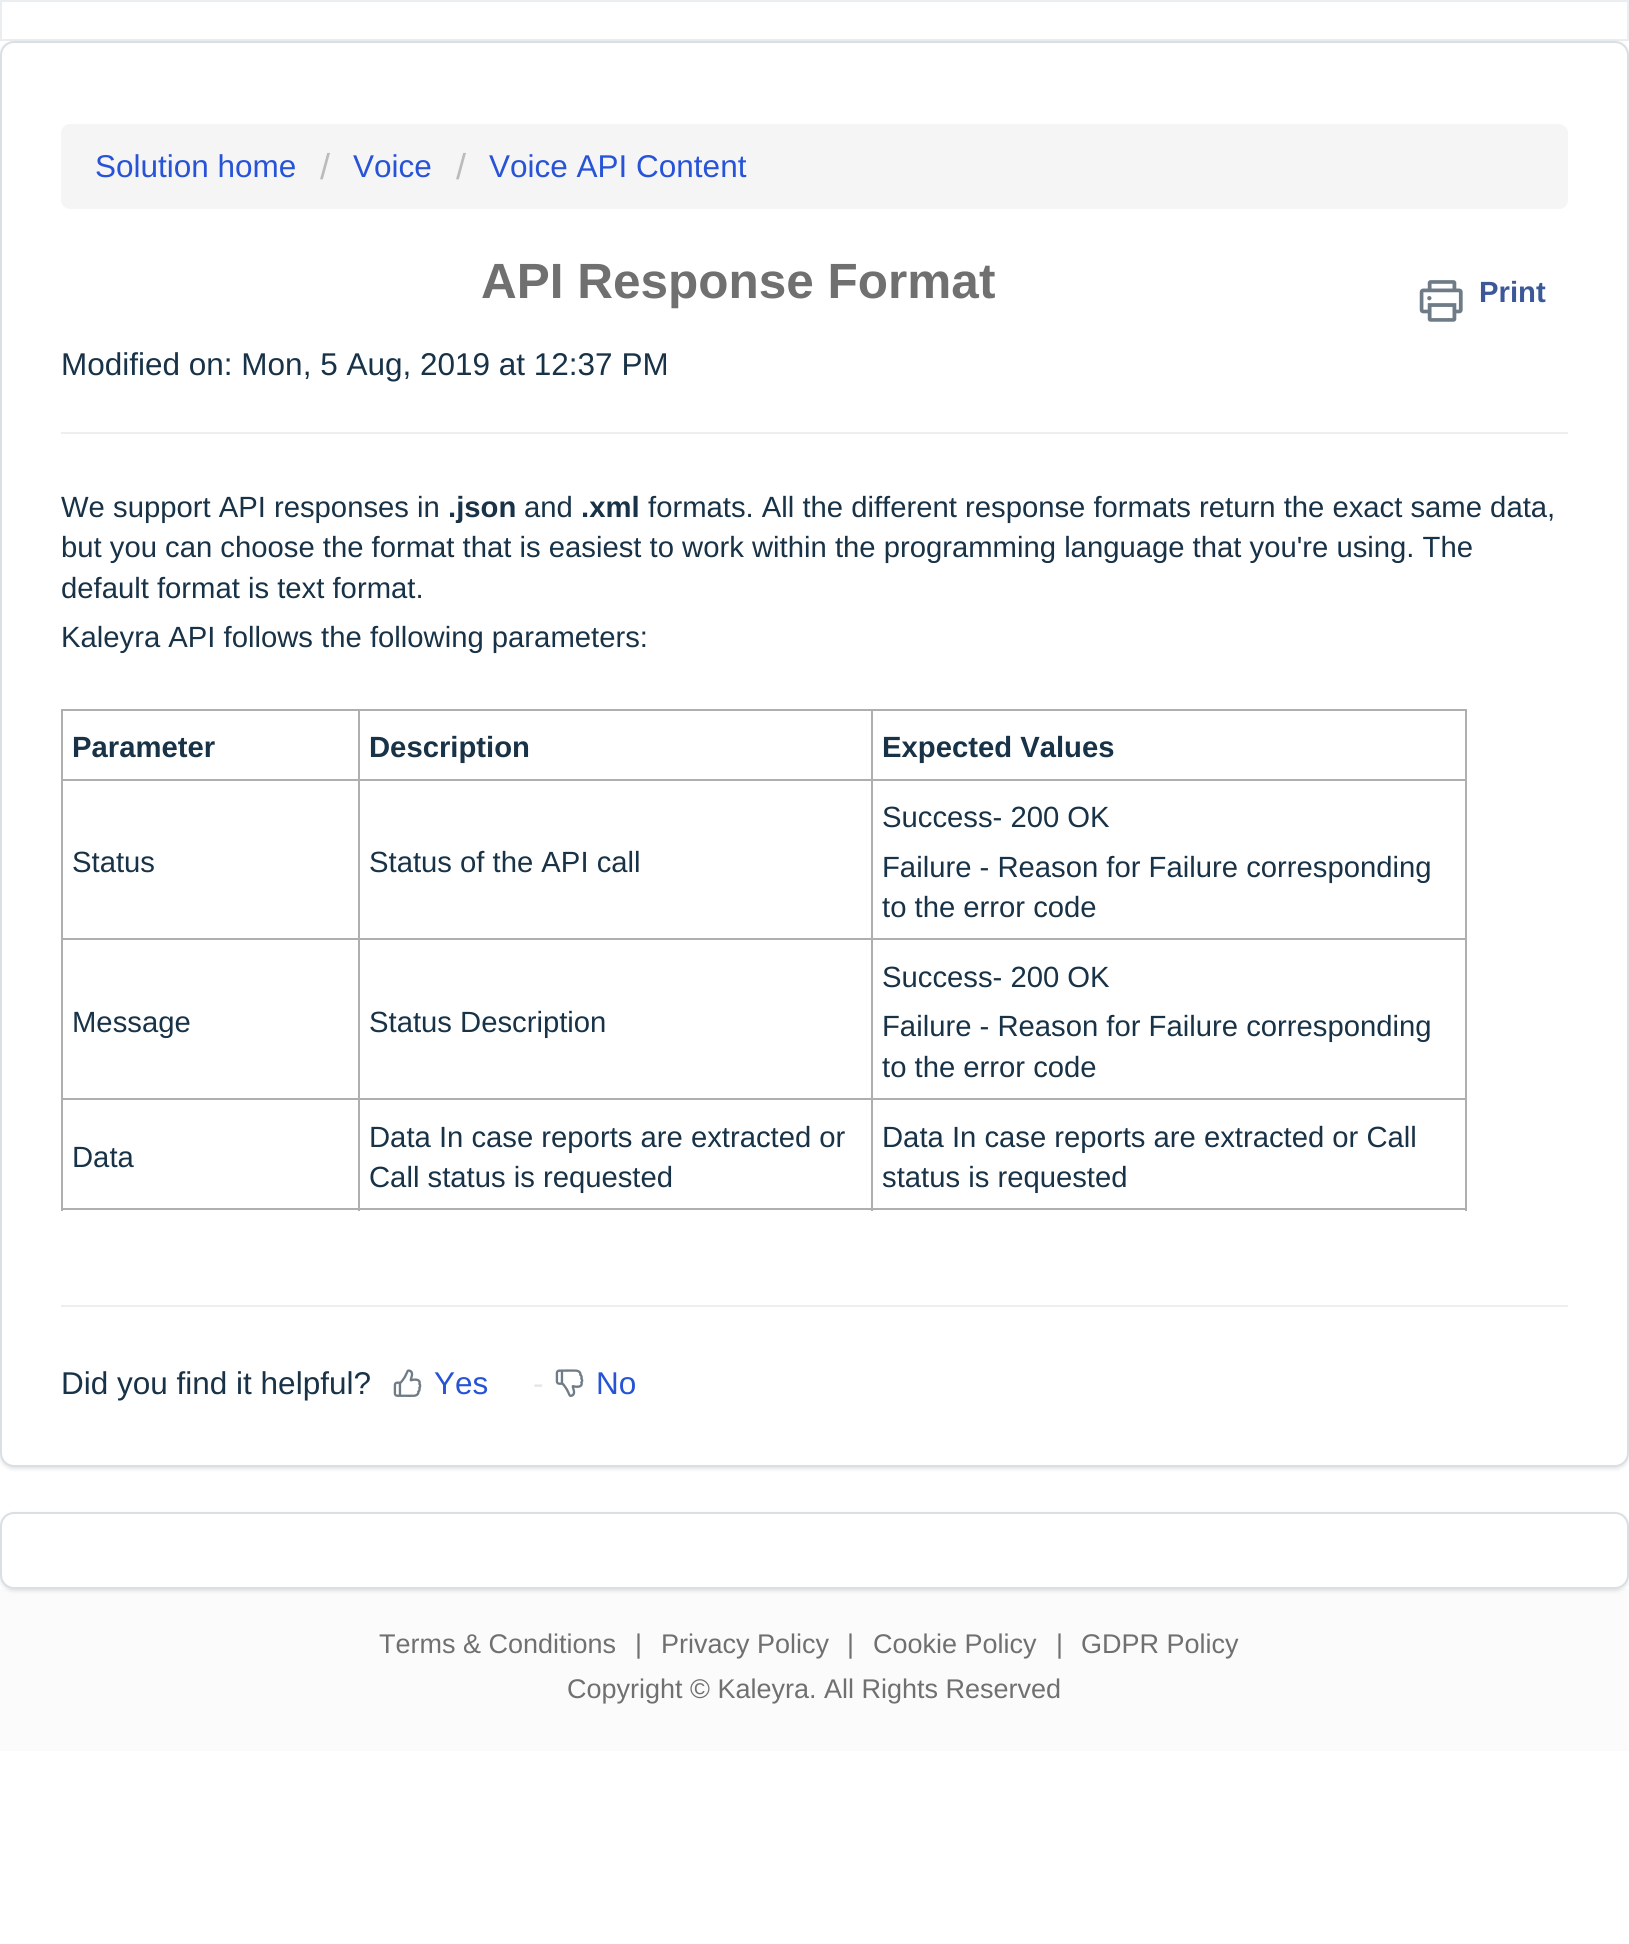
#include <cairo.h>
#include <math.h>
#include <stddef.h>


static void set_color(cairo_t *cr, unsigned color) {
    cairo_set_source_rgb(cr, (color >> 16) / 255.0, (color >> 8 & 255) / 255.0, (color & 255) / 255.0);
}

static void draw_text(cairo_t *cr, double x, double y, const char *s, const char *family, double size, int italic, int bold, unsigned color) {
    cairo_select_font_face(cr, family, italic ? CAIRO_FONT_SLANT_ITALIC : CAIRO_FONT_SLANT_NORMAL,
        bold ? CAIRO_FONT_WEIGHT_BOLD : CAIRO_FONT_WEIGHT_NORMAL);
    cairo_set_font_size(cr, size);
    set_color(cr, color);
    cairo_move_to(cr, x, y);
    cairo_show_text(cr, s);
}

static void fill_rect(cairo_t *cr, double x, double y, double w, double h, unsigned color) {
    set_color(cr, color);
    cairo_rectangle(cr, x, y, w, h);
    cairo_fill(cr);
}

static void rounded_rect(cairo_t *cr, double x, double y, double w, double h, double r) {
    cairo_new_sub_path(cr);
    cairo_arc(cr, x + w - r, y + h - r, r, 0, M_PI / 2);
    cairo_arc(cr, x + r, y + h - r, r, M_PI / 2, M_PI);
    cairo_arc(cr, x + r, y + r, r, M_PI, 1.5 * M_PI);
    cairo_arc(cr, x + w - r, y + r, r, 1.5 * M_PI, 2 * M_PI);
    cairo_close_path(cr);
}

static void draw_shadow(cairo_t *cr, double x, double y, double w, double h, double r, double blur, double alpha) {
    cairo_push_group_with_content(cr, CAIRO_CONTENT_ALPHA);
    cairo_set_operator(cr, CAIRO_OPERATOR_SOURCE);
    for (int i = 15; i >= -15 && fmin(w, h) + blur * i / 3 > 0; i -= 2) {
        double e = blur * i / 6;
        cairo_set_source_rgba(cr, 0, 0, 0, alpha * erfc((i - 1) / 8.5) / 2);
        rounded_rect(cr, x - e, y - e, w + 2 * e, h + 2 * e, fmax(0, fmin(r + e + blur * .6, fmin(w, h) / 2 + e)));
        cairo_fill(cr);
    }
    cairo_pattern_t *soft = cairo_pop_group(cr);
    cairo_mask(cr, soft);
    cairo_pattern_destroy(soft);
}

static void draw_image(cairo_t *cr, const char *path, double x, double y, double w, double h) {
    cairo_surface_t *image = cairo_image_surface_create_from_png(path);
    cairo_save(cr);
    cairo_set_source_surface(cr, image, x, y);
    cairo_rectangle(cr, x, y, w, h);
    cairo_fill(cr);
    cairo_restore(cr);
    cairo_surface_destroy(image);
}

int main(void) {
    cairo_surface_t *surface = cairo_image_surface_create(CAIRO_FORMAT_RGB24, 1629, 1944);
    cairo_t *cr = cairo_create(surface);
    cairo_font_options_t *options = cairo_font_options_create();
    cairo_font_options_set_hint_metrics(options, CAIRO_HINT_METRICS_OFF);
    cairo_font_options_set_hint_style(options, CAIRO_HINT_STYLE_NONE);
    cairo_set_font_options(cr, options);
    cairo_set_miter_limit(cr, 4);
    set_color(cr, 0xFFFFFF);
    cairo_paint(cr);
    cairo_rectangle(cr, 1, 1, 1627, 39);
    set_color(cr, 0xEBEEF0);
    cairo_stroke(cr);
    set_color(cr, 0x3F3F44);
    draw_shadow(cr, 0, 43, 1629, 1426, 14, 2, 0.15);
    set_color(cr, 0xFFFFFF);
    rounded_rect(cr, 1, 42, 1627, 1424, 13);
    cairo_fill_preserve(cr);
    set_color(cr, 0xDADFE3);
    cairo_stroke(cr);
    set_color(cr, 0xF5F5F5);
    rounded_rect(cr, 61, 124, 1507, 85, 9);
    cairo_fill(cr);
    draw_text(cr, 95, 177, "Solution home", "Liberation Sans", 31.5, 0, 0, 0x2753D7);
    draw_text(cr, 320, 179, "/", "Liberation Sans", 36, 0, 0, 0xBBBBBB);
    draw_text(cr, 353, 177, "Voice", "Liberation Sans", 31.5, 0, 0, 0x2753D7);
    draw_text(cr, 456, 179, "/", "Liberation Sans", 36, 0, 0, 0xBBBBBB);
    draw_text(cr, 489, 177, "Voice API Content", "Liberation Sans", 31.5, 0, 0, 0x2753D7);
    draw_text(cr, 481, 298, "API Response Format", "Liberation Sans", 49.5, 0, 1, 0x707070);
    draw_image(cr, "assets/img1.png", 1419, 280, 44, 42);
    draw_text(cr, 1479, 302, "Print", "Liberation Sans", 29.25, 0, 1, 0x3B5998);
    draw_text(cr, 61, 375, "Modified on: Mon, 5 Aug, 2019 at 12:37 PM", "Liberation Sans", 31.5, 0, 0, 0x183247);
    fill_rect(cr, 61, 432, 1507, 2, 0xEEEEEE);
    draw_text(cr, 61, 517, "We support API responses in", "Liberation Sans", 29.25, 0, 0, 0x183247);
    draw_text(cr, 448, 517, ".json", "Liberation Sans", 29.25, 0, 1, 0x183247);
    draw_text(cr, 524, 517, "and", "Liberation Sans", 29.25, 0, 0, 0x183247);
    draw_text(cr, 581, 517, ".xml", "Liberation Sans", 29.25, 0, 1, 0x183247);
    draw_text(cr, 648, 517, "formats. All the different response formats return the exact same data,", "Liberation Sans", 29.25, 0, 0, 0x183247);
    draw_text(cr, 61, 557, "but you can choose the format that is easiest to work within the programming language that you're using. The", "Liberation Sans", 29.25, 0, 0, 0x183247);
    draw_text(cr, 61, 598, "default format is text format.", "Liberation Sans", 29.25, 0, 0, 0x183247);
    draw_text(cr, 61, 647, "Kaleyra API follows the following parameters:", "Liberation Sans", 29.25, 0, 0, 0x183247);
    fill_rect(cr, 871, 709, 596, 2, 0xAFAFAF);
    fill_rect(cr, 871, 779, 596, 2, 0xAFAFAF);
    fill_rect(cr, 871, 938, 596, 2, 0xAFAFAF);
    fill_rect(cr, 871, 1098, 596, 2, 0xAFAFAF);
    fill_rect(cr, 1465, 1098, 2, 113, 0xAFAFAF);
    fill_rect(cr, 871, 1208, 596, 2, 0xAFAFAF);
    fill_rect(cr, 871, 1098, 2, 113, 0xAFAFAF);
    fill_rect(cr, 358, 1098, 515, 2, 0xAFAFAF);
    fill_rect(cr, 871, 938, 2, 162, 0xAFAFAF);
    fill_rect(cr, 358, 938, 515, 2, 0xAFAFAF);
    fill_rect(cr, 871, 779, 2, 162, 0xAFAFAF);
    fill_rect(cr, 358, 779, 515, 2, 0xAFAFAF);
    fill_rect(cr, 871, 709, 2, 72, 0xAFAFAF);
    fill_rect(cr, 358, 709, 515, 2, 0xAFAFAF);
    fill_rect(cr, 358, 1208, 515, 2, 0xAFAFAF);
    fill_rect(cr, 358, 1098, 2, 113, 0xAFAFAF);
    fill_rect(cr, 61, 1098, 299, 2, 0xAFAFAF);
    fill_rect(cr, 358, 938, 2, 162, 0xAFAFAF);
    fill_rect(cr, 61, 938, 299, 2, 0xAFAFAF);
    fill_rect(cr, 358, 779, 2, 162, 0xAFAFAF);
    fill_rect(cr, 61, 779, 299, 2, 0xAFAFAF);
    fill_rect(cr, 358, 709, 2, 72, 0xAFAFAF);
    fill_rect(cr, 61, 709, 299, 2, 0xAFAFAF);
    fill_rect(cr, 61, 1208, 299, 2, 0xAFAFAF);
    fill_rect(cr, 61, 1098, 2, 113, 0xAFAFAF);
    fill_rect(cr, 61, 938, 2, 162, 0xAFAFAF);
    fill_rect(cr, 61, 779, 2, 162, 0xAFAFAF);
    fill_rect(cr, 61, 709, 2, 72, 0xAFAFAF);
    draw_text(cr, 72, 757, "Parameter", "Liberation Sans", 29.25, 0, 1, 0x183247);
    draw_text(cr, 369, 757, "Description", "Liberation Sans", 29.25, 0, 1, 0x183247);
    fill_rect(cr, 1465, 938, 2, 162, 0xAFAFAF);
    fill_rect(cr, 1465, 779, 2, 162, 0xAFAFAF);
    fill_rect(cr, 1465, 709, 2, 72, 0xAFAFAF);
    draw_text(cr, 882, 757, "Expected Values", "Liberation Sans", 29.25, 0, 1, 0x183247);
    draw_text(cr, 72, 872, "Status", "Liberation Sans", 29.25, 0, 0, 0x183247);
    draw_text(cr, 369, 872, "Status of the API call", "Liberation Sans", 29.25, 0, 0, 0x183247);
    draw_text(cr, 882, 827, "Success- 200 OK", "Liberation Sans", 29.25, 0, 0, 0x183247);
    draw_text(cr, 882, 877, "Failure - Reason for Failure corresponding", "Liberation Sans", 29.25, 0, 0, 0x183247);
    draw_text(cr, 882, 917, "to the error code", "Liberation Sans", 29.25, 0, 0, 0x183247);
    draw_text(cr, 72, 1032, "Message", "Liberation Sans", 29.25, 0, 0, 0x183247);
    draw_text(cr, 369, 1032, "Status Description", "Liberation Sans", 29.25, 0, 0, 0x183247);
    draw_text(cr, 882, 987, "Success- 200 OK", "Liberation Sans", 29.25, 0, 0, 0x183247);
    draw_text(cr, 882, 1036, "Failure - Reason for Failure corresponding", "Liberation Sans", 29.25, 0, 0, 0x183247);
    draw_text(cr, 882, 1077, "to the error code", "Liberation Sans", 29.25, 0, 0, 0x183247);
    draw_text(cr, 72, 1167, "Data", "Liberation Sans", 29.25, 0, 0, 0x183247);
    draw_text(cr, 369, 1147, "Data In case reports are extracted or", "Liberation Sans", 29.25, 0, 0, 0x183247);
    draw_text(cr, 369, 1187, "Call status is requested", "Liberation Sans", 29.25, 0, 0, 0x183247);
    draw_text(cr, 882, 1147, "Data In case reports are extracted or Call", "Liberation Sans", 29.25, 0, 0, 0x183247);
    draw_text(cr, 882, 1187, "status is requested", "Liberation Sans", 29.25, 0, 0, 0x183247);
    fill_rect(cr, 61, 1305, 1507, 2, 0xEEEEEE);
    draw_text(cr, 61, 1394, "Did you find it helpful?", "Liberation Sans", 31.5, 0, 0, 0x183247);
    draw_image(cr, "assets/img2.png", 393, 1369, 29, 28);
    draw_text(cr, 434, 1394, "Yes", "Liberation Sans", 31.5, 0, 0, 0x2753D7);
    draw_text(cr, 533, 1394, "-", "Liberation Sans", 31.5, 0, 0, 0xE5E5E5);
    draw_image(cr, "assets/img3.png", 555, 1369, 29, 28);
    draw_text(cr, 596, 1394, "No", "Liberation Sans", 31.5, 0, 0, 0x2753D7);
    fill_rect(cr, 0, 1589, 1629, 162, 0xFBFBFB);
    set_color(cr, 0x3F3F44);
    draw_shadow(cr, 0, 1514, 1629, 77, 14, 2, 0.15);
    set_color(cr, 0xFFFFFF);
    rounded_rect(cr, 1, 1513, 1627, 75, 13);
    cairo_fill_preserve(cr);
    set_color(cr, 0xDADFE3);
    cairo_stroke(cr);
    draw_text(cr, 379, 1653, "Terms & Conditions", "Liberation Sans", 27, 0, 0, 0x707070);
    draw_text(cr, 635, 1653, "|", "Liberation Sans", 27, 0, 0, 0x707070);
    draw_text(cr, 661, 1653, "Privacy Policy", "Liberation Sans", 27, 0, 0, 0x707070);
    draw_text(cr, 847, 1653, "|", "Liberation Sans", 27, 0, 0, 0x707070);
    draw_text(cr, 873, 1653, "Cookie Policy", "Liberation Sans", 27, 0, 0, 0x707070);
    draw_text(cr, 1056, 1653, "|", "Liberation Sans", 27, 0, 0, 0x707070);
    draw_text(cr, 1081, 1653, "GDPR Policy", "Liberation Sans", 27, 0, 0, 0x707070);
    draw_text(cr, 567, 1698, "Copyright © Kaleyra. All Rights Reserved", "Liberation Sans", 27, 0, 0, 0x707070);
    cairo_surface_write_to_png(surface, "output.png");
    cairo_font_options_destroy(options);
    cairo_destroy(cr);
    cairo_surface_destroy(surface);
    return 0;
}
